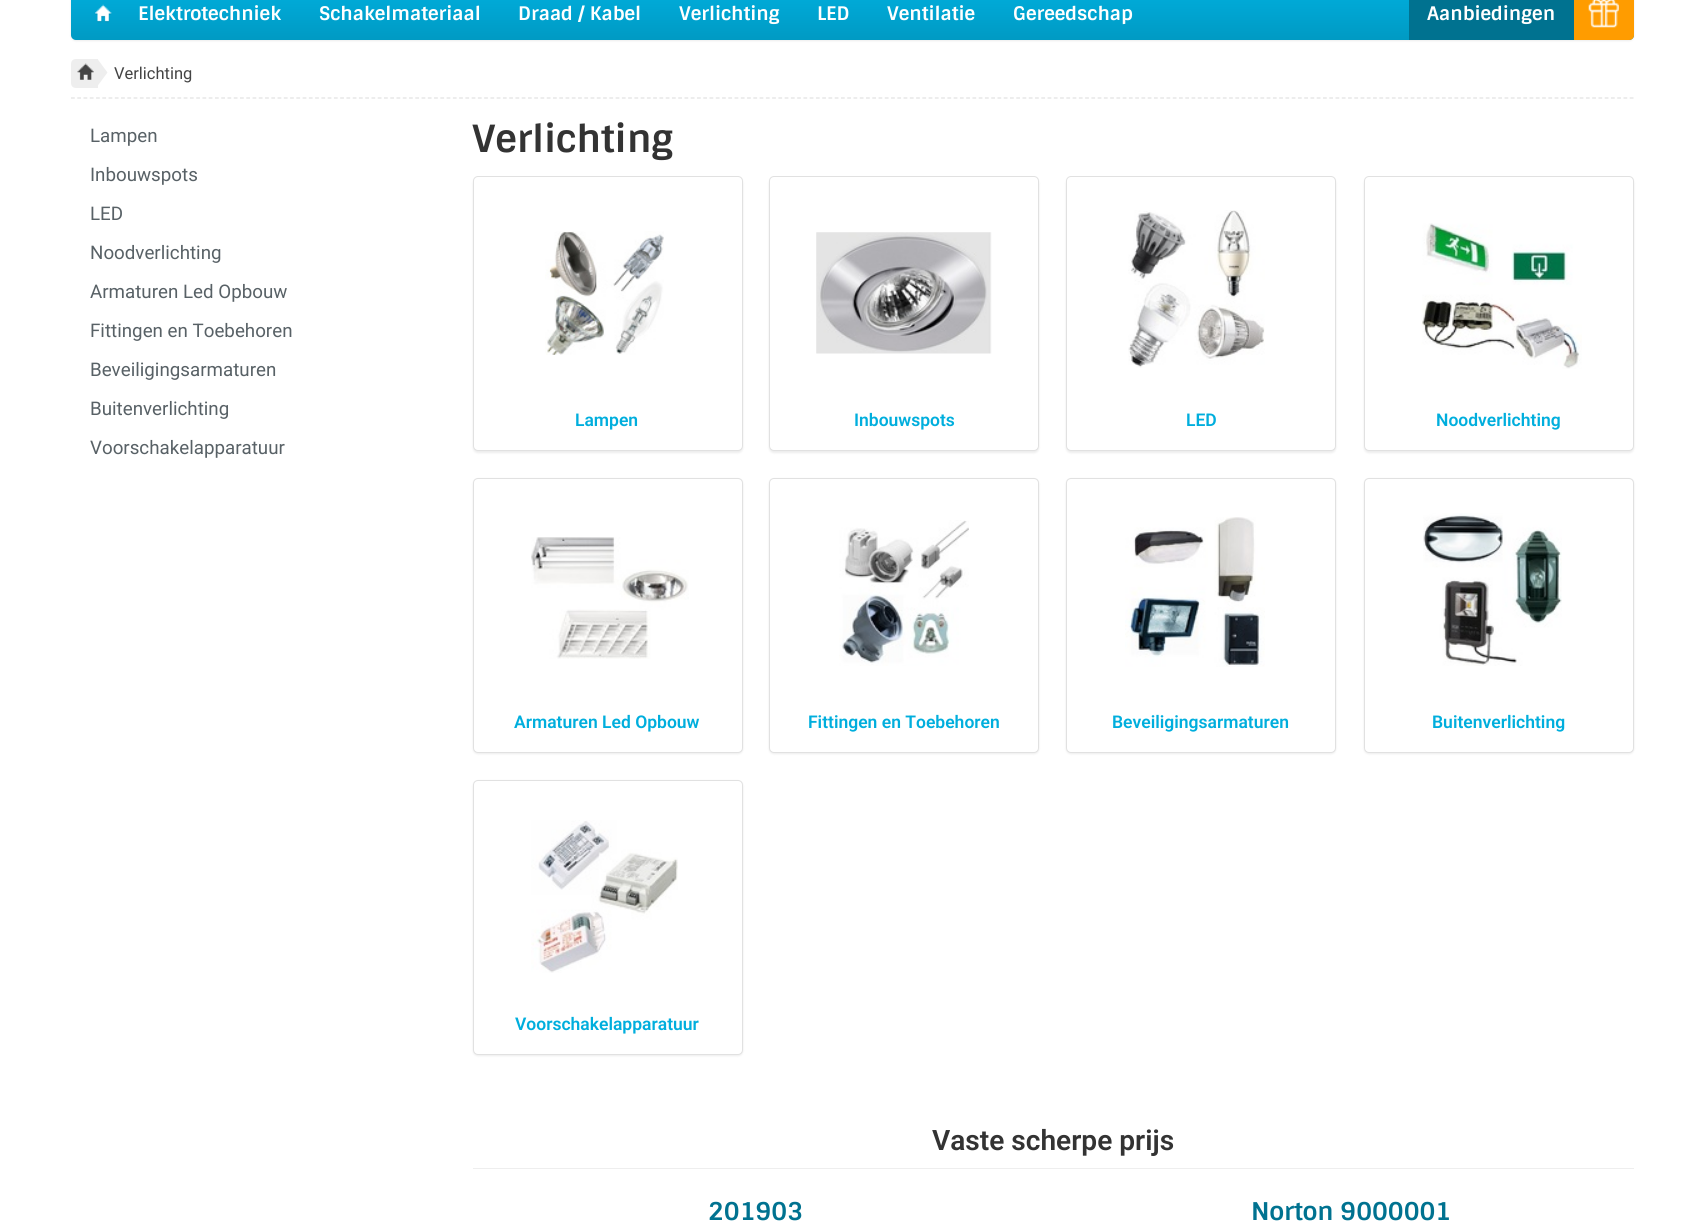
#include <cairo.h>
#include <math.h>
#include <stddef.h>


static void set_color(cairo_t *cr, unsigned color) {
    cairo_set_source_rgb(cr, (color >> 16) / 255.0, (color >> 8 & 255) / 255.0, (color & 255) / 255.0);
}

static void draw_text(cairo_t *cr, double x, double y, const char *s, const char *family, double size, int italic, int bold, unsigned color) {
    cairo_select_font_face(cr, family, italic ? CAIRO_FONT_SLANT_ITALIC : CAIRO_FONT_SLANT_NORMAL,
        bold ? CAIRO_FONT_WEIGHT_BOLD : CAIRO_FONT_WEIGHT_NORMAL);
    cairo_set_font_size(cr, size);
    set_color(cr, color);
    cairo_move_to(cr, x, y);
    cairo_show_text(cr, s);
}

static void fill_rect(cairo_t *cr, double x, double y, double w, double h, unsigned color) {
    set_color(cr, color);
    cairo_rectangle(cr, x, y, w, h);
    cairo_fill(cr);
}

static void rounded_rect(cairo_t *cr, double x, double y, double w, double h, double r) {
    cairo_new_sub_path(cr);
    cairo_arc(cr, x + w - r, y + h - r, r, 0, M_PI / 2);
    cairo_arc(cr, x + r, y + h - r, r, M_PI / 2, M_PI);
    cairo_arc(cr, x + r, y + r, r, M_PI, 1.5 * M_PI);
    cairo_arc(cr, x + w - r, y + r, r, 1.5 * M_PI, 2 * M_PI);
    cairo_close_path(cr);
}

static void draw_shadow(cairo_t *cr, double x, double y, double w, double h, double r, double blur, double alpha) {
    cairo_push_group_with_content(cr, CAIRO_CONTENT_ALPHA);
    cairo_set_operator(cr, CAIRO_OPERATOR_SOURCE);
    for (int i = 15; i >= -15 && fmin(w, h) + blur * i / 3 > 0; i -= 2) {
        double e = blur * i / 6;
        cairo_set_source_rgba(cr, 0, 0, 0, alpha * erfc((i - 1) / 8.5) / 2);
        rounded_rect(cr, x - e, y - e, w + 2 * e, h + 2 * e, fmax(0, fmin(r + e + blur * .6, fmin(w, h) / 2 + e)));
        cairo_fill(cr);
    }
    cairo_pattern_t *soft = cairo_pop_group(cr);
    cairo_mask(cr, soft);
    cairo_pattern_destroy(soft);
}

static void draw_image(cairo_t *cr, const char *path, double x, double y, double w, double h) {
    cairo_surface_t *image = cairo_image_surface_create_from_png(path);
    cairo_save(cr);
    cairo_set_source_surface(cr, image, x, y);
    cairo_rectangle(cr, x, y, w, h);
    cairo_fill(cr);
    cairo_restore(cr);
    cairo_surface_destroy(image);
}

int main(void) {
    cairo_surface_t *surface = cairo_image_surface_create(CAIRO_FORMAT_RGB24, 1705, 1229);
    cairo_t *cr = cairo_create(surface);
    cairo_font_options_t *options = cairo_font_options_create();
    cairo_font_options_set_hint_metrics(options, CAIRO_HINT_METRICS_OFF);
    cairo_font_options_set_hint_style(options, CAIRO_HINT_STYLE_NONE);
    cairo_set_font_options(cr, options);
    cairo_set_miter_limit(cr, 4);
    cairo_pattern_t *gradient;
    set_color(cr, 0xFFFFFF);
    cairo_paint(cr);
    set_color(cr, 0x444444);
    draw_shadow(cr, 71, -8, 1563, 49, 5, 1, 0.1);
    gradient = cairo_pattern_create_linear(853, -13, 853, 40);
    cairo_pattern_add_color_stop_rgba(gradient, 0, 0, 0.682, 0.867, 1);
    cairo_pattern_add_color_stop_rgba(gradient, 1, 0, 0.604, 0.765, 1);
    cairo_set_source(cr, gradient);
    cairo_pattern_destroy(gradient);
    rounded_rect(cr, 71, -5, 1563, 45, 5);
    cairo_fill(cr);
    draw_image(cr, "assets/img1.png", 95, 4, 17, 19);
    draw_text(cr, 138, 20, "Elektrotechniek", "Sintony", 18.75, 0, 1, 0xFFFFFF);
    draw_text(cr, 319, 20, "Schakelmateriaal", "Sintony", 18.75, 0, 1, 0xFFFFFF);
    draw_text(cr, 518, 20, "Draad / Kabel", "Sintony", 18.75, 0, 1, 0xFFFFFF);
    draw_text(cr, 679, 20, "Verlichting", "Sintony", 18.75, 0, 1, 0xFFFFFF);
    draw_text(cr, 817, 20, "LED", "Sintony", 18.75, 0, 1, 0xFFFFFF);
    draw_text(cr, 887, 20, "Ventilatie", "Sintony", 18.75, 0, 1, 0xFFFFFF);
    draw_text(cr, 1013, 20, "Gereedschap", "Sintony", 18.75, 0, 1, 0xFFFFFF);
    fill_rect(cr, 1409, 0, 165, 40, 0x007290);
    draw_text(cr, 1427, 20, "Aanbiedingen", "Sintony", 18.75, 0, 1, 0xFFFFFF);
    set_color(cr, 0xFF9C00);
    cairo_new_path(cr);
    cairo_move_to(cr, 1574, -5);
    cairo_line_to(cr, 1629, -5);
    cairo_curve_to(cr, 1632, -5, 1634, -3, 1634, 0);
    cairo_line_to(cr, 1634, 35);
    cairo_curve_to(cr, 1634, 38, 1632, 40, 1629, 40);
    cairo_line_to(cr, 1574, 40);
    cairo_close_path(cr);
    cairo_fill(cr);
    draw_image(cr, "assets/img2.png", 1588, 0, 31, 28);
    cairo_new_path(cr);
    cairo_move_to(cr, 71, 98);
    cairo_line_to(cr, 1634, 98);
    set_color(cr, 0xE1E1E1);
    cairo_set_line_width(cr, 1.2);
    cairo_set_dash(cr, (double[]){3.75, 2.51}, 2, 0);
    cairo_stroke(cr);
    set_color(cr, 0xEEEEEE);
    cairo_new_path(cr);
    cairo_move_to(cr, 76, 59);
    cairo_line_to(cr, 98, 59);
    cairo_line_to(cr, 98, 88);
    cairo_line_to(cr, 76, 88);
    cairo_curve_to(cr, 73, 88, 71, 86, 71, 83);
    cairo_line_to(cr, 71, 64);
    cairo_curve_to(cr, 71, 61, 73, 59, 76, 59);
    cairo_close_path(cr);
    cairo_fill(cr);
    draw_image(cr, "assets/img3.png", 77, 63, 17, 17);
    cairo_new_path(cr);
    cairo_move_to(cr, 97.5, 86);
    cairo_line_to(cr, 97.5, 59);
    cairo_line_to(cr, 107.5, 72.5);
    cairo_close_path(cr);
    cairo_fill(cr);
    draw_text(cr, 114, 79, "Verlichting", "Roboto", 16.5, 0, 0, 0x444444);
    draw_text(cr, 90, 142, "Lampen", "Roboto", 18.75, 0, 0, 0x586166);
    draw_text(cr, 90, 181, "Inbouwspots", "Roboto", 18.75, 0, 0, 0x586166);
    draw_text(cr, 90, 220, "LED", "Roboto", 18.75, 0, 0, 0x586166);
    draw_text(cr, 90, 259, "Noodverlichting", "Roboto", 18.75, 0, 0, 0x586166);
    draw_text(cr, 90, 298, "Armaturen Led Opbouw", "Roboto", 18.75, 0, 0, 0x586166);
    draw_text(cr, 90, 337, "Fittingen en Toebehoren", "Roboto", 18.75, 0, 0, 0x586166);
    draw_text(cr, 90, 376, "Beveiligingsarmaturen", "Roboto", 18.75, 0, 0, 0x586166);
    draw_text(cr, 90, 415, "Buitenverlichting", "Roboto", 18.75, 0, 0, 0x586166);
    draw_text(cr, 90, 454, "Voorschakelapparatuur", "Roboto", 18.75, 0, 0, 0x586166);
    draw_text(cr, 472, 152, "Verlichting", "Sintony", 37.5, 0, 1, 0x333333);
    set_color(cr, 0x444444);
    draw_shadow(cr, 473, 178, 270, 275, 5, 1, 0.1);
    set_color(cr, 0xFFFFFF);
    rounded_rect(cr, 473.5, 176.5, 269, 274, 4.5);
    cairo_fill_preserve(cr);
    set_color(cr, 0xE1E1E1);
    cairo_set_line_width(cr, 1);
    cairo_set_dash(cr, NULL, 0, 0);
    cairo_stroke(cr);
    draw_image(cr, "assets/img4.png", 545, 231, 119, 124);
    draw_text(cr, 575, 426, "Lampen", "Roboto SemiBold", 17.5, 0, 0, 0x00AEDD);
    set_color(cr, 0x444444);
    draw_shadow(cr, 769, 178, 270, 275, 5, 1, 0.1);
    set_color(cr, 0xFFFFFF);
    rounded_rect(cr, 769.5, 176.5, 269, 274, 4.5);
    cairo_fill_preserve(cr);
    set_color(cr, 0xE1E1E1);
    cairo_stroke(cr);
    draw_image(cr, "assets/img5.png", 816, 232, 176, 122);
    draw_text(cr, 854, 426, "Inbouwspots", "Roboto SemiBold", 17.5, 0, 0, 0x00AEDD);
    set_color(cr, 0x444444);
    draw_shadow(cr, 1066, 178, 270, 275, 5, 1, 0.1);
    set_color(cr, 0xFFFFFF);
    rounded_rect(cr, 1066.5, 176.5, 269, 274, 4.5);
    cairo_fill_preserve(cr);
    set_color(cr, 0xE1E1E1);
    cairo_stroke(cr);
    draw_image(cr, "assets/img6.png", 1128, 210, 137, 158);
    draw_text(cr, 1186, 426, "LED", "Roboto SemiBold", 17.5, 0, 0, 0x00AEDD);
    set_color(cr, 0x444444);
    draw_shadow(cr, 1364, 178, 270, 275, 5, 1, 0.1);
    set_color(cr, 0xFFFFFF);
    rounded_rect(cr, 1364.5, 176.5, 269, 274, 4.5);
    cairo_fill_preserve(cr);
    set_color(cr, 0xE1E1E1);
    cairo_stroke(cr);
    draw_image(cr, "assets/img7.png", 1421, 223, 161, 146);
    draw_text(cr, 1436, 426, "Noodverlichting", "Roboto SemiBold", 17.5, 0, 0, 0x00AEDD);
    set_color(cr, 0x444444);
    draw_shadow(cr, 473, 479, 270, 275, 5, 1, 0.1);
    set_color(cr, 0xFFFFFF);
    rounded_rect(cr, 473.5, 478.5, 269, 274, 4.5);
    cairo_fill_preserve(cr);
    set_color(cr, 0xE1E1E1);
    cairo_stroke(cr);
    draw_image(cr, "assets/img8.png", 531, 537, 158, 122);
    draw_text(cr, 514, 728, "Armaturen Led Opbouw", "Roboto SemiBold", 17.5, 0, 0, 0x00AEDD);
    set_color(cr, 0x444444);
    draw_shadow(cr, 769, 479, 270, 275, 5, 1, 0.1);
    set_color(cr, 0xFFFFFF);
    rounded_rect(cr, 769.5, 478.5, 269, 274, 4.5);
    cairo_fill_preserve(cr);
    set_color(cr, 0xE1E1E1);
    cairo_stroke(cr);
    draw_image(cr, "assets/img9.png", 839, 520, 130, 146);
    draw_text(cr, 808, 728, "Fittingen en Toebehoren", "Roboto SemiBold", 17.5, 0, 0, 0x00AEDD);
    set_color(cr, 0x444444);
    draw_shadow(cr, 1066, 479, 270, 275, 5, 1, 0.1);
    set_color(cr, 0xFFFFFF);
    rounded_rect(cr, 1066.5, 478.5, 269, 274, 4.5);
    cairo_fill_preserve(cr);
    set_color(cr, 0xE1E1E1);
    cairo_stroke(cr);
    draw_image(cr, "assets/img10.png", 1125, 517, 140, 150);
    draw_text(cr, 1112, 728, "Beveiligingsarmaturen", "Roboto SemiBold", 17.5, 0, 0, 0x00AEDD);
    set_color(cr, 0x444444);
    draw_shadow(cr, 1364, 479, 270, 275, 5, 1, 0.1);
    set_color(cr, 0xFFFFFF);
    rounded_rect(cr, 1364.5, 478.5, 269, 274, 4.5);
    cairo_fill_preserve(cr);
    set_color(cr, 0xE1E1E1);
    cairo_stroke(cr);
    draw_image(cr, "assets/img11.png", 1423, 513, 139, 153);
    draw_text(cr, 1432, 728, "Buitenverlichting", "Roboto SemiBold", 17.5, 0, 0, 0x00AEDD);
    set_color(cr, 0x444444);
    draw_shadow(cr, 473, 781, 270, 275, 5, 1, 0.1);
    set_color(cr, 0xFFFFFF);
    rounded_rect(cr, 473.5, 780.5, 269, 274, 4.5);
    cairo_fill_preserve(cr);
    set_color(cr, 0xE1E1E1);
    cairo_stroke(cr);
    draw_image(cr, "assets/img12.png", 531, 820, 147, 153);
    draw_text(cr, 515, 1030, "Voorschakelapparatuur", "Roboto SemiBold", 17.5, 0, 0, 0x00AEDD);
    fill_rect(cr, 473, 1168, 1161, 1, 0xEEEEEE);
    draw_text(cr, 932, 1150, "Vaste scherpe prijs", "Roboto SemiBold", 28.1, 0, 0, 0x333333);
    draw_text(cr, 708, 1220, "201903", "Sintony", 24.5, 0, 1, 0x007290);
    draw_text(cr, 1251, 1220, "Norton 9000001", "Sintony", 24.5, 0, 1, 0x007290);
    cairo_surface_write_to_png(surface, "output.png");
    cairo_font_options_destroy(options);
    cairo_destroy(cr);
    cairo_surface_destroy(surface);
    return 0;
}
